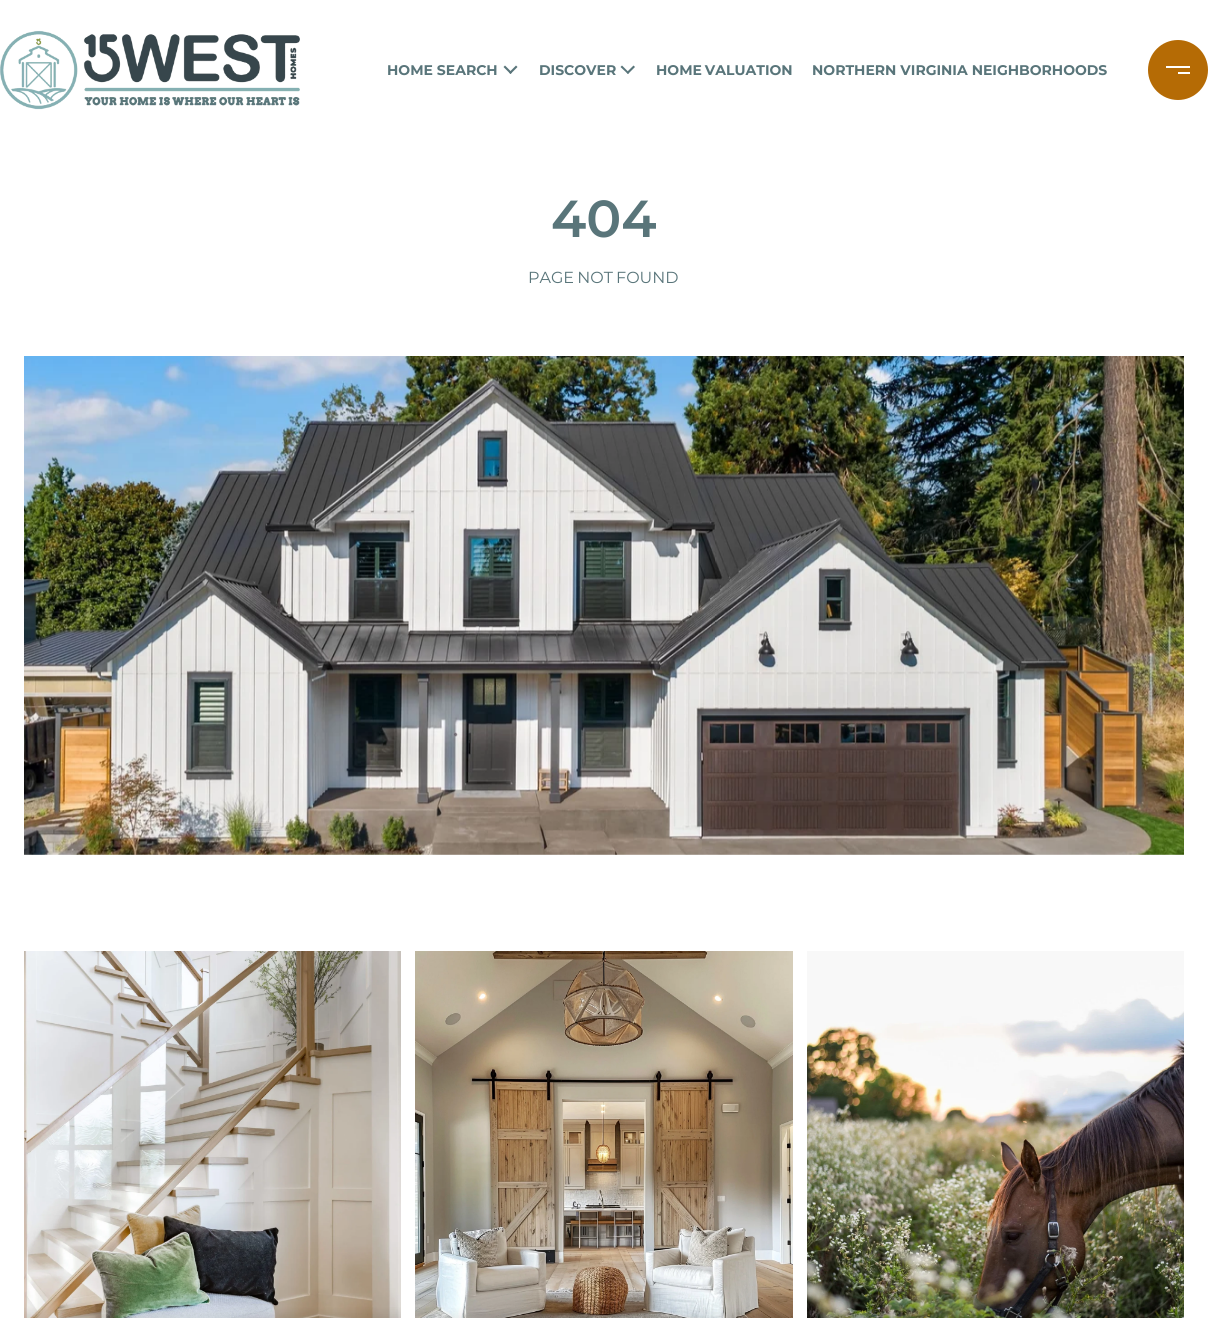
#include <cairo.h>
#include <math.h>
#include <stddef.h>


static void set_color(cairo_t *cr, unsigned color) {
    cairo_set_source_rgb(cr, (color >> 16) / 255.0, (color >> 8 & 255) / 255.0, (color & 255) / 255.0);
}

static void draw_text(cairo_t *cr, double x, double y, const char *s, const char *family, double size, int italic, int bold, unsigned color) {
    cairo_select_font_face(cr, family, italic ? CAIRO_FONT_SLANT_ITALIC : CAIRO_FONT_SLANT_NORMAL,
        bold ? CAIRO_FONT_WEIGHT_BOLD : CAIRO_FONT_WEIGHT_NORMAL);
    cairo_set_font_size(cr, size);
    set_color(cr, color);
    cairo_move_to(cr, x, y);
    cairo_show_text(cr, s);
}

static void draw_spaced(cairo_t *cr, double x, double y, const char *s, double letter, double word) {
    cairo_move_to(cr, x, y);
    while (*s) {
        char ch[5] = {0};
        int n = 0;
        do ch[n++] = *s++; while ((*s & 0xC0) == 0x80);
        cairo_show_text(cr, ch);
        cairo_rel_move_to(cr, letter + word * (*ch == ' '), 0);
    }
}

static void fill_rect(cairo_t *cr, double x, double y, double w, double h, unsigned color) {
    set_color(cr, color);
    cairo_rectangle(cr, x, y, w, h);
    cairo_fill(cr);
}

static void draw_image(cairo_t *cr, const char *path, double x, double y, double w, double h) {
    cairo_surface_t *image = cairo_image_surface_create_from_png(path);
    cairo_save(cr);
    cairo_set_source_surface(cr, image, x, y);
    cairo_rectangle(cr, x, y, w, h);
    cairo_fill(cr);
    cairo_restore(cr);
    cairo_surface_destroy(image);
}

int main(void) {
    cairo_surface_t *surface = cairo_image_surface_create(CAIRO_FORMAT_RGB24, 1208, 1318);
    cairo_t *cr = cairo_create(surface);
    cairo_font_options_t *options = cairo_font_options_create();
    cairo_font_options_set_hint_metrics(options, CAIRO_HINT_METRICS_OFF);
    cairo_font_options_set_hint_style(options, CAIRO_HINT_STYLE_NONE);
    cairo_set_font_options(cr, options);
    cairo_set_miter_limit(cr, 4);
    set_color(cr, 0xFFFFFF);
    cairo_paint(cr);
    draw_image(cr, "assets/img1.png", 0, 30, 300, 80);
    draw_text(cr, 387, 75, "HOME SEARCH", "Montserrat", 14, 0, 1, 0x59757A);
    cairo_new_path(cr);
    cairo_move_to(cr, 516, 65.5);
    cairo_line_to(cr, 517.5, 67);
    cairo_line_to(cr, 510.5, 74);
    cairo_line_to(cr, 509, 72.5);
    cairo_close_path(cr);
    cairo_fill(cr);
    cairo_new_path(cr);
    cairo_move_to(cr, 505, 65.5);
    cairo_line_to(cr, 512, 72.5);
    cairo_line_to(cr, 510.5, 74);
    cairo_line_to(cr, 503.5, 67);
    cairo_close_path(cr);
    cairo_fill(cr);
    draw_text(cr, 539, 75, "DISCOVER", "Montserrat", 14, 0, 1, 0x59757A);
    cairo_new_path(cr);
    cairo_move_to(cr, 633.5, 65.5);
    cairo_line_to(cr, 635, 67);
    cairo_line_to(cr, 628, 74);
    cairo_line_to(cr, 626.5, 72.5);
    cairo_close_path(cr);
    cairo_fill(cr);
    cairo_new_path(cr);
    cairo_move_to(cr, 622, 65.5);
    cairo_line_to(cr, 629, 72.5);
    cairo_line_to(cr, 628, 74);
    cairo_line_to(cr, 620.5, 67);
    cairo_close_path(cr);
    cairo_fill(cr);
    draw_spaced(cr, 656, 75, "HOME VALUATION", 0, -1);
    draw_text(cr, 812, 75, "NORTHERN VIRGINIA NEIGHBORHOODS", "Montserrat", 14, 0, 1, 0x59757A);
    set_color(cr, 0xB56B05);
    cairo_new_path(cr);
    cairo_arc(cr, 1178, 70, 30, 0, 2 * M_PI);
    cairo_fill(cr);
    fill_rect(cr, 1166, 66, 24, 2, 0xFFFFFF);
    fill_rect(cr, 1178, 72, 12, 2, 0xFFFFFF);
    draw_text(cr, 551, 237, "404", "Montserrat SemiBold", 52, 0, 0, 0x59757A);
    cairo_select_font_face(cr, "Montserrat", CAIRO_FONT_SLANT_NORMAL, CAIRO_FONT_WEIGHT_NORMAL);
    cairo_set_font_size(cr, 16);
    draw_spaced(cr, 528, 283, "PAGE NOT FOUND", 0, -1);
    draw_image(cr, "assets/img2.png", 24, 356, 1160, 499);
    draw_image(cr, "assets/img3.png", 24, 951, 377, 367);
    draw_image(cr, "assets/img4.png", 415, 951, 378, 367);
    draw_image(cr, "assets/img5.png", 807, 951, 377, 367);
    cairo_surface_write_to_png(surface, "output.png");
    cairo_font_options_destroy(options);
    cairo_destroy(cr);
    cairo_surface_destroy(surface);
    return 0;
}
